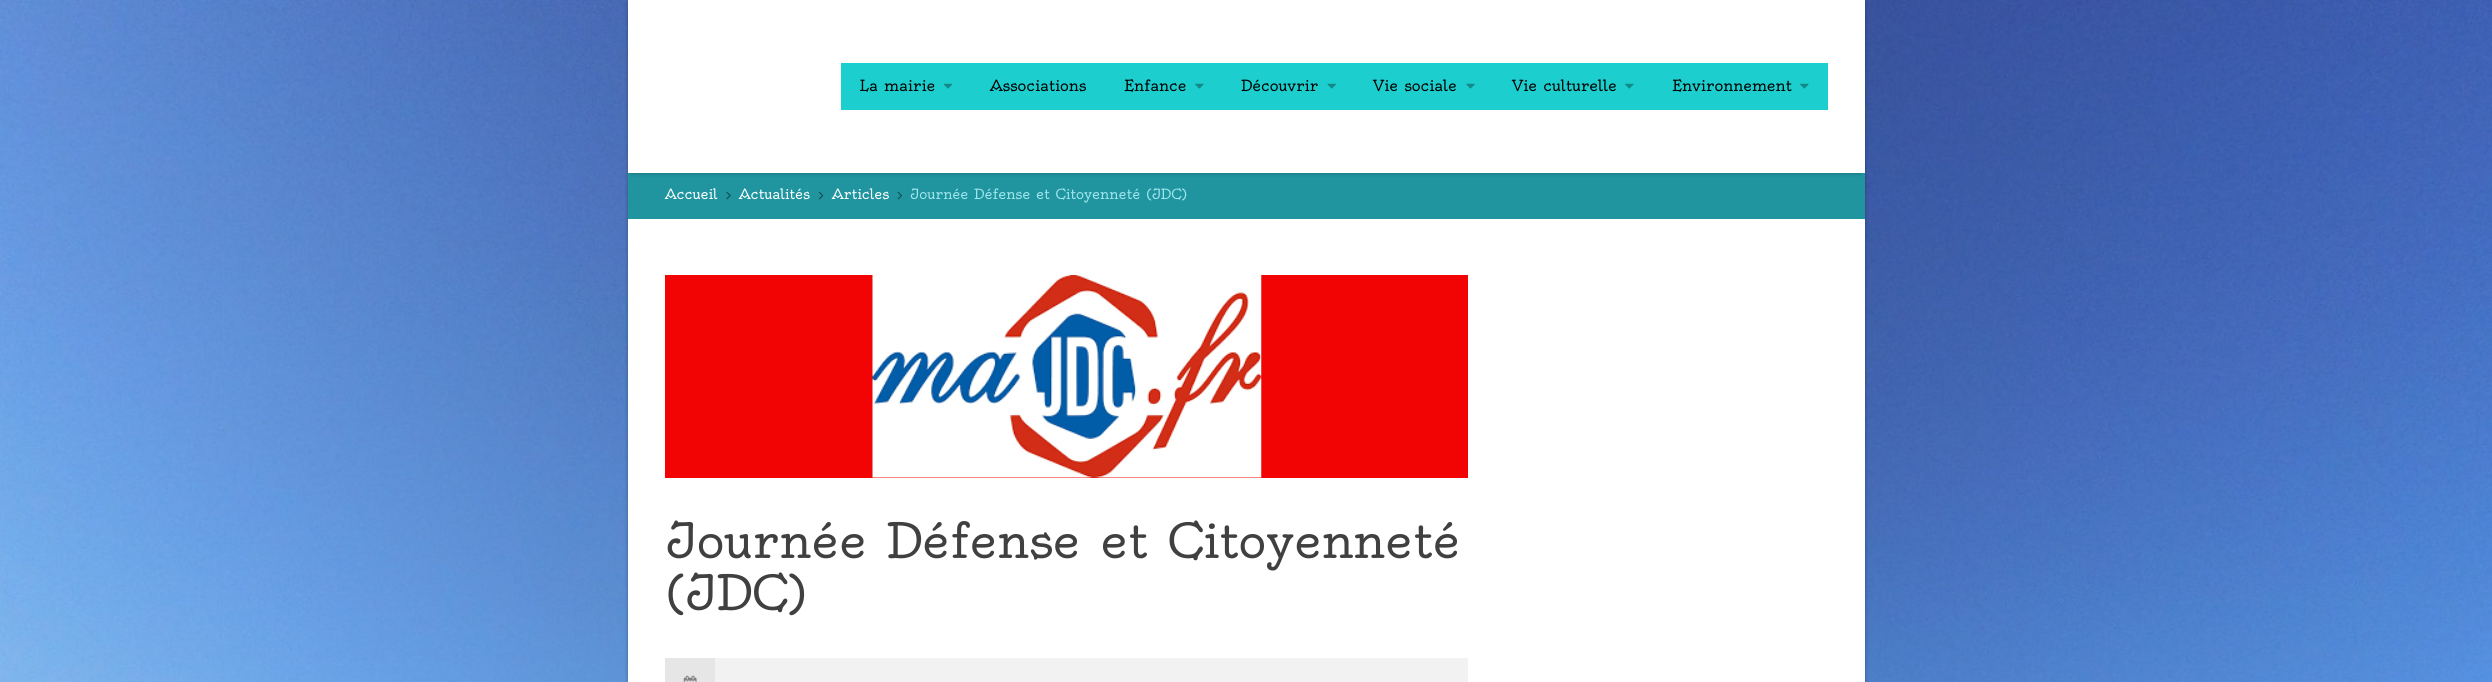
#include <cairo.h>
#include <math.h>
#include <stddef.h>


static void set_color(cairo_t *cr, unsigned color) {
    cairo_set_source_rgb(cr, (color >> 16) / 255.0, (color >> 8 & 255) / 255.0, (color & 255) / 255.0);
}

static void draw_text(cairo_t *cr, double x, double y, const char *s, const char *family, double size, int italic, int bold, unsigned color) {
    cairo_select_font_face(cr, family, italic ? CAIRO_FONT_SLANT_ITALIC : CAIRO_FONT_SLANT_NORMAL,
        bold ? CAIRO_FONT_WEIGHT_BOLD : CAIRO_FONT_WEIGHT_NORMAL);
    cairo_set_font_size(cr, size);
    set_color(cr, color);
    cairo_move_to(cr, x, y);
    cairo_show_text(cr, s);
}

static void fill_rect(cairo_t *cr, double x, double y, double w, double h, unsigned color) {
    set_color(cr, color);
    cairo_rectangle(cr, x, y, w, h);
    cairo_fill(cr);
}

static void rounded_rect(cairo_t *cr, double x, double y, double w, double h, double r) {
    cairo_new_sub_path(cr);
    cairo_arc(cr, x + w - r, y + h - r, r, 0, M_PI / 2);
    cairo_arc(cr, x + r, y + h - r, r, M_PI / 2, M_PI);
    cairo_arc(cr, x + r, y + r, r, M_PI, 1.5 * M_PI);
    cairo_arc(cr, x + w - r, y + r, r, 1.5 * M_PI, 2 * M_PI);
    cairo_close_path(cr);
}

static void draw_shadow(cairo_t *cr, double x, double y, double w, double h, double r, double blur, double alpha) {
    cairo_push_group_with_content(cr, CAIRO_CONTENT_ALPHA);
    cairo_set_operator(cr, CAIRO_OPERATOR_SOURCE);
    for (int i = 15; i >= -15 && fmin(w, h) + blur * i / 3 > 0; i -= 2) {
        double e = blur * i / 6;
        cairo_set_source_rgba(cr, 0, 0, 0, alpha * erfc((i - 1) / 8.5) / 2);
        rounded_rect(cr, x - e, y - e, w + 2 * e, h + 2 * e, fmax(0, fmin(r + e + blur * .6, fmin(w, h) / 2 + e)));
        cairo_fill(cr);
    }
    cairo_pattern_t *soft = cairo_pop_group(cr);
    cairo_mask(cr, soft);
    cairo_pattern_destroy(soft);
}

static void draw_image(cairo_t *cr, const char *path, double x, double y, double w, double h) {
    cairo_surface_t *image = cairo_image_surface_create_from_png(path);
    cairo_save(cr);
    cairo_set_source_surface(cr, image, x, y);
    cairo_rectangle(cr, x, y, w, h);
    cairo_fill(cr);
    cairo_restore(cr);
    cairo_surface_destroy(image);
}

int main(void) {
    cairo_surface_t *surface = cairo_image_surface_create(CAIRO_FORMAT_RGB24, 2492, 682);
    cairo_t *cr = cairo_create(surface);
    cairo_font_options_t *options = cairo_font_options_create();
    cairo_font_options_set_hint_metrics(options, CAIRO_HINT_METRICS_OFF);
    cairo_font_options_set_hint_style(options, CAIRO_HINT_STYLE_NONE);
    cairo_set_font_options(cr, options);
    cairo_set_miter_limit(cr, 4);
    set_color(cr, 0xFFFFFF);
    cairo_paint(cr);
    draw_image(cr, "assets/img1.png", 0, 0, 2492, 682);
    set_color(cr, 0x000000);
    draw_shadow(cr, 628, 1, 1237, 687, 0, 2, 0.3);
    fill_rect(cr, 628, 173, 1237, 46, 0x2095A0);
    set_color(cr, 0x000000);
    draw_shadow(cr, 631, 9, 1230, 165, 0, 2, 0.2);
    fill_rect(cr, 628, 0, 1237, 173, 0xFFFFFF);
    fill_rect(cr, 841, 63, 987, 47, 0x1CCECE);
    draw_text(cr, 859, 91, "La mairie", "Oldenburg", 15, 0, 0, 0x000000);
    draw_image(cr, "assets/img2.png", 943, 83, 10, 6);
    draw_text(cr, 990, 91, "Associations", "Oldenburg", 15, 0, 0, 0x000000);
    draw_text(cr, 1124, 91, "Enfance", "Oldenburg", 15, 0, 0, 0x000000);
    draw_image(cr, "assets/img3.png", 1195, 83, 9, 6);
    draw_text(cr, 1241, 91, "Découvrir", "Oldenburg", 15, 0, 0, 0x000000);
    draw_image(cr, "assets/img4.png", 1327, 83, 9, 6);
    draw_text(cr, 1373, 91, "Vie sociale", "Oldenburg", 15, 0, 0, 0x000000);
    draw_image(cr, "assets/img5.png", 1466, 83, 9, 6);
    draw_text(cr, 1512, 91, "Vie culturelle", "Oldenburg", 15, 0, 0, 0x000000);
    draw_image(cr, "assets/img3.png", 1625, 83, 9, 6);
    draw_text(cr, 1672, 91, "Environnement", "Oldenburg", 15, 0, 0, 0x000000);
    draw_image(cr, "assets/img3.png", 1800, 83, 9, 6);
    draw_text(cr, 665, 199, "Accueil", "Oldenburg", 13.75, 0, 0, 0xFFFFFF);
    draw_image(cr, "assets/img6.png", 726, 191, 5, 9);
    draw_text(cr, 739, 199, "Actualités", "Oldenburg", 13.75, 0, 0, 0xFFFFFF);
    draw_image(cr, "assets/img7.png", 819, 191, 5, 9);
    draw_text(cr, 832, 199, "Articles", "Oldenburg", 13.75, 0, 0, 0xFFFFFF);
    draw_image(cr, "assets/img8.png", 897, 191, 5, 9);
    draw_text(cr, 910, 199, "Journée Défense et Citoyenneté (JDC)", "Oldenburg", 13.75, 0, 0, 0xA0E6EC);
    fill_rect(cr, 628, 219, 1237, 463, 0xFFFFFF);
    fill_rect(cr, 665, 275, 803, 203, 0xF20404);
    draw_image(cr, "assets/img9.png", 872, 275, 390, 203);
    draw_text(cr, 665, 558, "Journée Défense et Citoyenneté", "Oldenburg", 47.5, 0, 0, 0x404040);
    draw_text(cr, 665, 610, "(JDC)", "Oldenburg", 47.5, 0, 0, 0x404040);
    fill_rect(cr, 715, 658, 753, 24, 0xF2F2F2);
    fill_rect(cr, 665, 658, 50, 24, 0xE6E6E6);
    draw_image(cr, "assets/img10.png", 683, 675, 14, 7);
    cairo_surface_write_to_png(surface, "output.png");
    cairo_font_options_destroy(options);
    cairo_destroy(cr);
    cairo_surface_destroy(surface);
    return 0;
}
